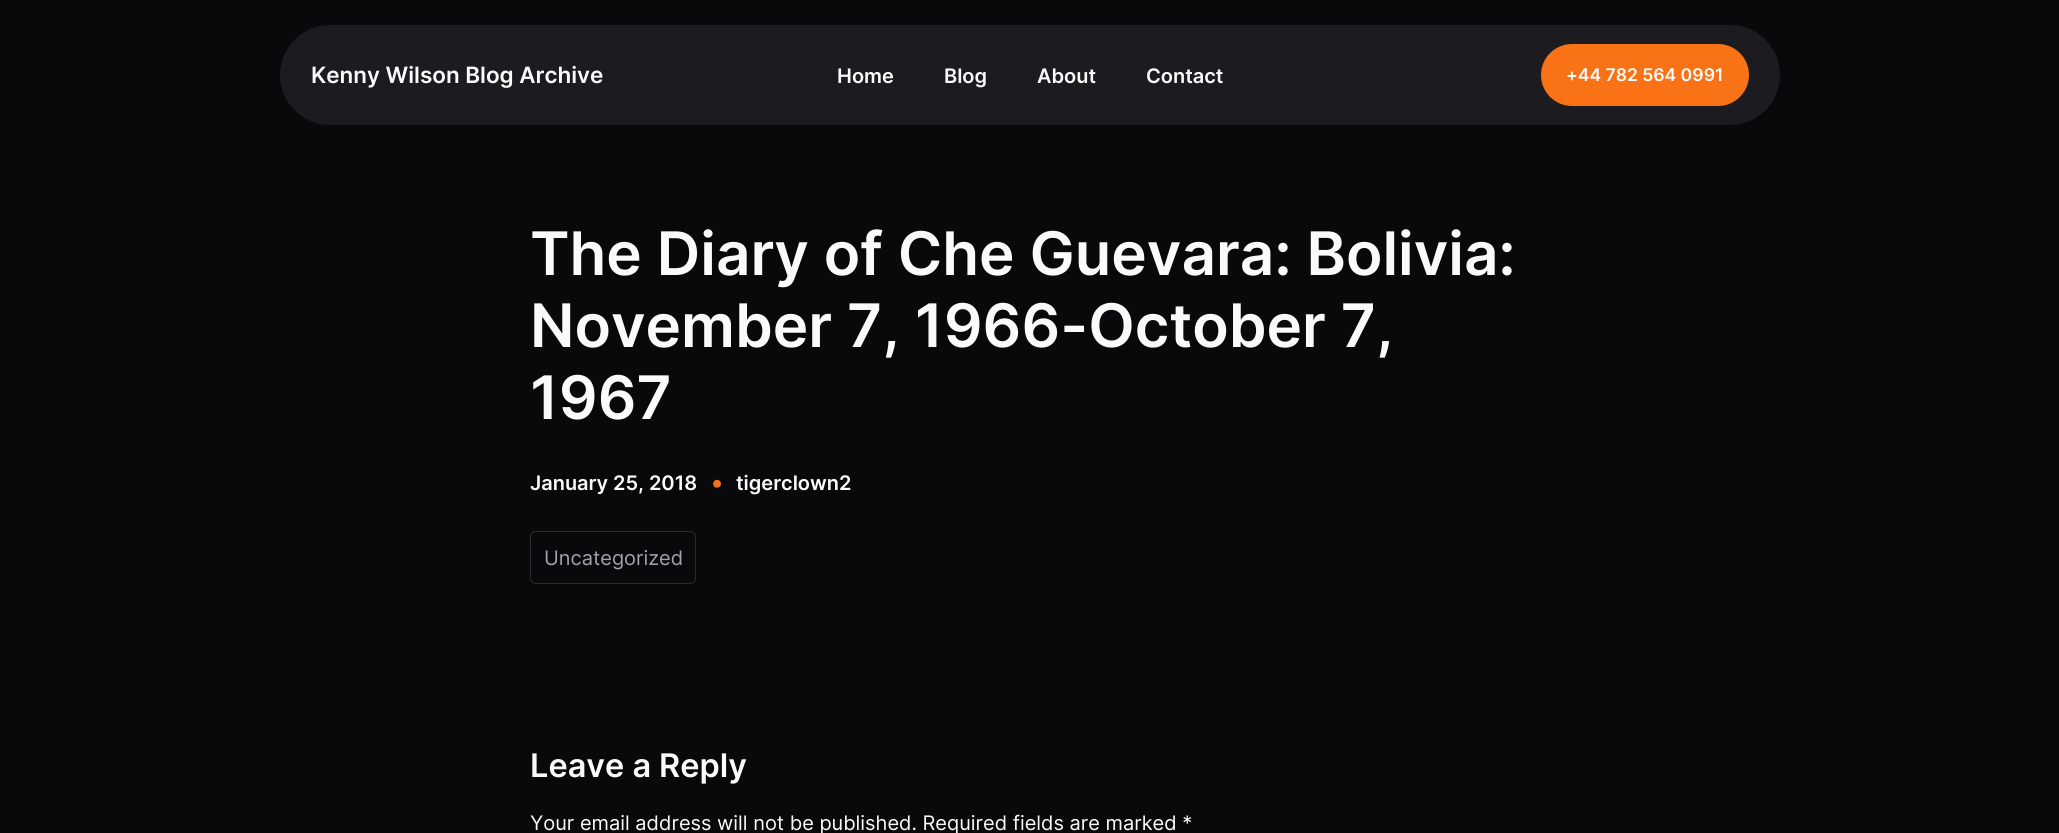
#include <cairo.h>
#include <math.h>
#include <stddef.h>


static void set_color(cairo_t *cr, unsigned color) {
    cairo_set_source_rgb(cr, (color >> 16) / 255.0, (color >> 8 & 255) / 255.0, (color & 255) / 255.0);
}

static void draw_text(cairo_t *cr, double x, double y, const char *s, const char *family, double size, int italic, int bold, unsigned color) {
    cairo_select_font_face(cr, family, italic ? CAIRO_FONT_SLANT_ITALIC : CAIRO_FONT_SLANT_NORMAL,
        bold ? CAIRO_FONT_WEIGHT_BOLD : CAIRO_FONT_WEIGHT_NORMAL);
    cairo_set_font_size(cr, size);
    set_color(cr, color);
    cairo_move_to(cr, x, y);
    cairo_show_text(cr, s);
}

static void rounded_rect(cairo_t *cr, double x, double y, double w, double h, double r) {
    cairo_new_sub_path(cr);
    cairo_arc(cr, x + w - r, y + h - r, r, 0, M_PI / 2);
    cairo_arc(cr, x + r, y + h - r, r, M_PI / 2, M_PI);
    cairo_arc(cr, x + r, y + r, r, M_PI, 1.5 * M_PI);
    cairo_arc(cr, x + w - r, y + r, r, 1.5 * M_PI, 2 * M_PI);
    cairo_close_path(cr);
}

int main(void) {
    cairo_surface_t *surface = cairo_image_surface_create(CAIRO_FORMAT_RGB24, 2059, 833);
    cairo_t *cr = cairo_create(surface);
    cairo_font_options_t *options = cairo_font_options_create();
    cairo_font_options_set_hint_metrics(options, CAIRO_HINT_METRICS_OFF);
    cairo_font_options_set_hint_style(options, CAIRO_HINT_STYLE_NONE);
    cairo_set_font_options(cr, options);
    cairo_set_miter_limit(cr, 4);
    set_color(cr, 0x09090B);
    cairo_paint(cr);
    set_color(cr, 0x1C1C20);
    rounded_rect(cr, 280, 25, 1500, 100, 50);
    cairo_fill(cr);
    draw_text(cr, 311, 83, "Kenny Wilson Blog Archive", "Inter SemiBold", 22.5, 0, 0, 0xFAFAFA);
    draw_text(cr, 837, 83, "Home", "Inter SemiBold", 20, 0, 0, 0xFAFAFA);
    draw_text(cr, 944, 83, "Blog", "Inter SemiBold", 20, 0, 0, 0xFAFAFA);
    draw_text(cr, 1037, 83, "About", "Inter SemiBold", 20, 0, 0, 0xFAFAFA);
    draw_text(cr, 1146, 83, "Contact", "Inter SemiBold", 20, 0, 0, 0xFAFAFA);
    set_color(cr, 0xF97316);
    rounded_rect(cr, 1541, 44, 208, 62, 31);
    cairo_fill(cr);
    draw_text(cr, 1566, 81, "+44 782 564 0991", "Inter SemiBold", 17.5, 0, 0, 0xFAFAFA);
    draw_text(cr, 530, 275, "The Diary of Che Guevara: Bolivia:", "Inter SemiBold", 60, 0, 0, 0xFAFAFA);
    draw_text(cr, 530, 347, "November 7, 1966-October 7,", "Inter SemiBold", 60, 0, 0, 0xFAFAFA);
    draw_text(cr, 530, 419, "1967", "Inter SemiBold", 60, 0, 0, 0xFAFAFA);
    draw_text(cr, 530, 490, "January 25, 2018", "Inter SemiBold", 20, 0, 0, 0xFAFAFA);
    draw_text(cr, 710, 491, "•", "Inter", 25, 0, 0, 0xF97316);
    draw_text(cr, 736, 490, "tigerclown2", "Inter SemiBold", 20, 0, 0, 0xFAFAFA);
    rounded_rect(cr, 530.5, 531.5, 165, 52, 5.5);
    set_color(cr, 0x2A2A2E);
    cairo_set_line_width(cr, 1);
    cairo_stroke(cr);
    draw_text(cr, 544, 565, "Uncategorized", "Inter", 20, 0, 0, 0xA1A1AA);
    draw_text(cr, 530, 777, "Leave a Reply", "Inter SemiBold", 32.5, 0, 0, 0xFAFAFA);
    draw_text(cr, 530, 830, "Your email address will not be published. Required fields are marked *", "Inter", 20, 0, 0, 0xFAFAFA);
    cairo_surface_write_to_png(surface, "output.png");
    cairo_font_options_destroy(options);
    cairo_destroy(cr);
    cairo_surface_destroy(surface);
    return 0;
}
